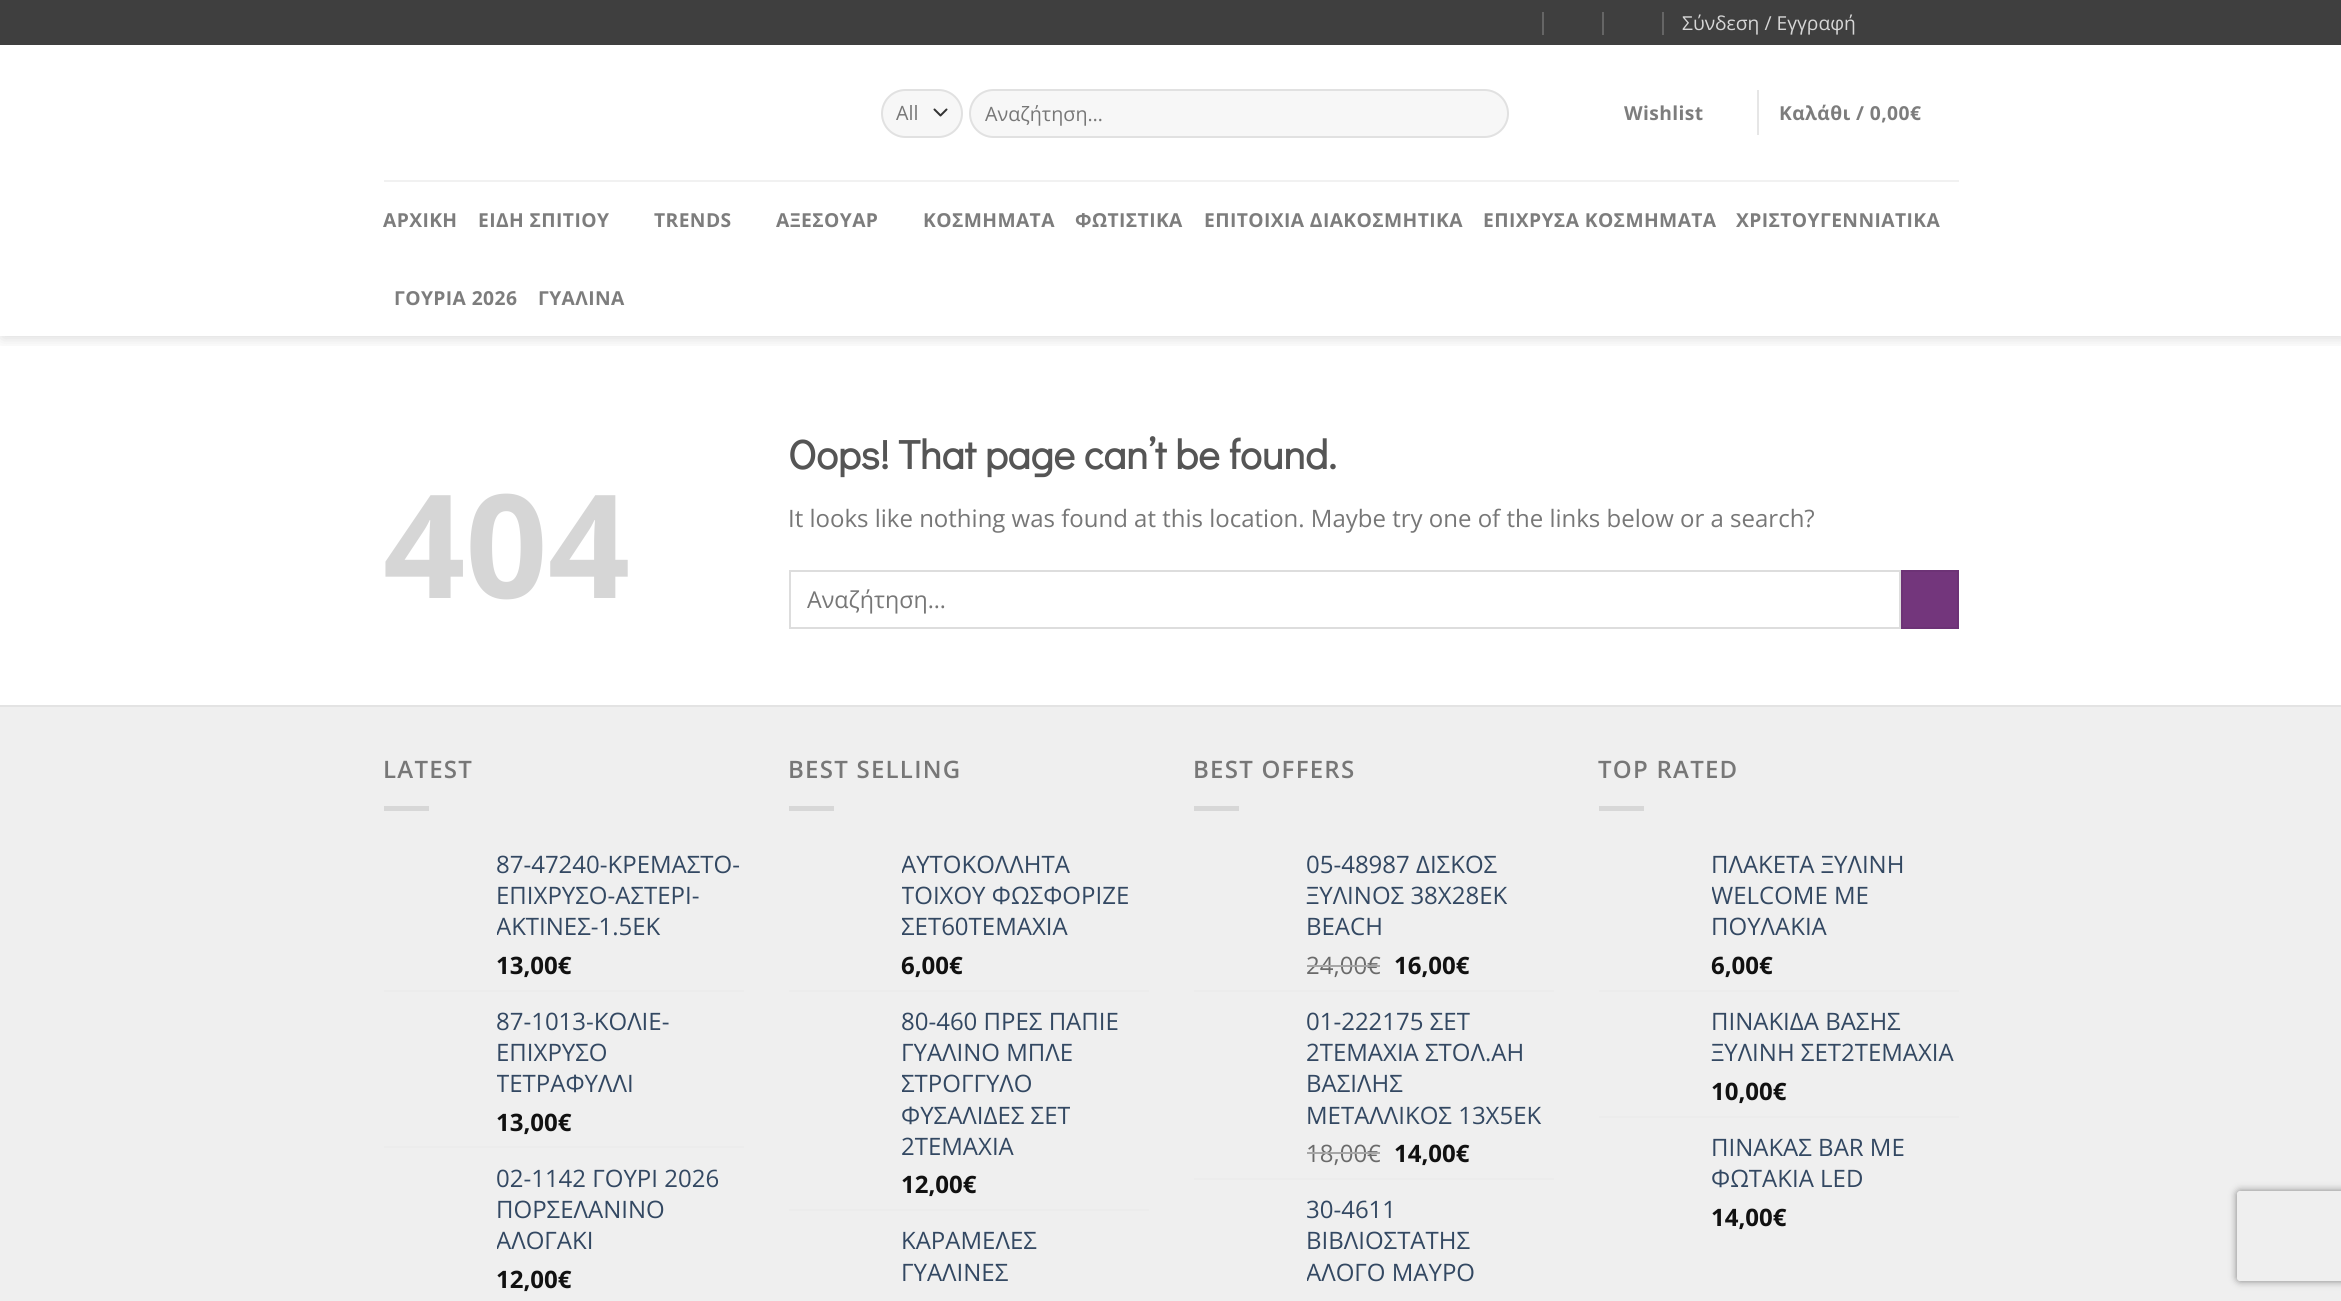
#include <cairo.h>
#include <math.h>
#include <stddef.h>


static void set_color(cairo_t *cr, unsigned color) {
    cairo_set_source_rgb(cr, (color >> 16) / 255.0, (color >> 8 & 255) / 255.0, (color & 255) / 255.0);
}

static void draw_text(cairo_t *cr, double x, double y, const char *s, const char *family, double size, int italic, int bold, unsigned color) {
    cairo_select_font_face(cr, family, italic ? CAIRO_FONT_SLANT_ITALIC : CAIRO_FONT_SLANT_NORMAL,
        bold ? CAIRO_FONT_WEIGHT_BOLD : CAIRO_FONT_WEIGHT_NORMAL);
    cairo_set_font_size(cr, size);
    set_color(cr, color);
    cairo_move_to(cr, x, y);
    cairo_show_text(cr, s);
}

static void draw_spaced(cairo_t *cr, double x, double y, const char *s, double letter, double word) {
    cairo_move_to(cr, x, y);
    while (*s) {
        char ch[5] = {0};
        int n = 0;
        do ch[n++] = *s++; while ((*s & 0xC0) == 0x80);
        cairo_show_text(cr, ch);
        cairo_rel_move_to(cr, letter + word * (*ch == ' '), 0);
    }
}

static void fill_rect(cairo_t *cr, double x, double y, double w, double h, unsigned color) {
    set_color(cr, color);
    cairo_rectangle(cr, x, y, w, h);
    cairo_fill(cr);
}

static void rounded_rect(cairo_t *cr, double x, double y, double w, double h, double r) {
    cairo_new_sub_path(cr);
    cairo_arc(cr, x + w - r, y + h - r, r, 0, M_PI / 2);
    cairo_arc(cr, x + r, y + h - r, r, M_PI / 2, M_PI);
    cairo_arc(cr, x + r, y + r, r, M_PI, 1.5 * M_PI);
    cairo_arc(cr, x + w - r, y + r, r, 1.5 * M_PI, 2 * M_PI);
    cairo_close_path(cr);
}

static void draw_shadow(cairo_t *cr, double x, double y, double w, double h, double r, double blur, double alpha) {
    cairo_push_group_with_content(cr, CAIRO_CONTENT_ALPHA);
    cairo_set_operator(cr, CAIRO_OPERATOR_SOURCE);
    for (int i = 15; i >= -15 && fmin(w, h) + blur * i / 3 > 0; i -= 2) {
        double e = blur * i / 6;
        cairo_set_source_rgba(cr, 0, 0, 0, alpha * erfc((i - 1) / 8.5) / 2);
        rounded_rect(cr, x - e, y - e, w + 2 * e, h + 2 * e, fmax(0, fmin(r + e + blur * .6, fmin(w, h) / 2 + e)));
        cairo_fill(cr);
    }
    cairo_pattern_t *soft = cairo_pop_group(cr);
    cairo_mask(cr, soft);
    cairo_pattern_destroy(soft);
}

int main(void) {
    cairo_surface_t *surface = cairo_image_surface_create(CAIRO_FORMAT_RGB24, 2341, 1301);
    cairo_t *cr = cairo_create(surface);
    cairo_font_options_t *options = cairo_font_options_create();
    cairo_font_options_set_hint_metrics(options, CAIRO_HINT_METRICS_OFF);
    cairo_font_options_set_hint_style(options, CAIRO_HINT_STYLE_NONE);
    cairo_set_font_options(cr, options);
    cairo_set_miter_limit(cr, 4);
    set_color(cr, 0xFFFFFF);
    cairo_paint(cr);
    cairo_save(cr);
    cairo_rectangle(cr, 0, 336, 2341, 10);
    cairo_clip(cr);
    set_color(cr, 0x000000);
    draw_shadow(cr, 2, 2, 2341, 336, 0, 7.5, 0.15);
    cairo_restore(cr);
    fill_rect(cr, 0, 0, 2341, 45, 0x3F3F3F);
    fill_rect(cr, 1542, 12, 2, 23, 0x656565);
    fill_rect(cr, 1602, 12, 2, 23, 0x656565);
    fill_rect(cr, 1662, 12, 2, 23, 0x656565);
    draw_text(cr, 1682, 30, "Σύνδεση / Εγγραφή", "Open Sans", 19.25, 0, 0, 0xD6D6D6);
    set_color(cr, 0xF7F7F7);
    rounded_rect(cr, 881, 89, 82, 49, 24.5);
    cairo_fill(cr);
    cairo_new_path(cr);
    cairo_move_to(cr, 934.5, 109.5);
    cairo_line_to(cr, 940.5, 115.5);
    cairo_line_to(cr, 946.5, 109.5);
    set_color(cr, 0x333333);
    cairo_set_line_cap(cr, CAIRO_LINE_CAP_ROUND);
    cairo_set_line_join(cr, CAIRO_LINE_JOIN_ROUND);
    cairo_stroke(cr);
    rounded_rect(cr, 882, 90, 80, 47, 23.5);
    cairo_set_source_rgba(cr, 0, 0, 0, 0.09);
    cairo_set_line_cap(cr, CAIRO_LINE_CAP_BUTT);
    cairo_set_line_join(cr, CAIRO_LINE_JOIN_MITER);
    cairo_stroke(cr);
    draw_text(cr, 896, 120, "All", "Open Sans", 19.75, 0, 0, 0x777777);
    set_color(cr, 0xF7F7F7);
    rounded_rect(cr, 969, 89, 540, 49, 24.5);
    cairo_fill(cr);
    rounded_rect(cr, 970, 90, 538, 47, 23.5);
    cairo_set_source_rgba(cr, 0, 0, 0, 0.09);
    cairo_stroke(cr);
    draw_text(cr, 985, 121, "Αναζήτηση…", "Open Sans", 19.75, 0, 0, 0x777777);
    cairo_select_font_face(cr, "Open Sans", CAIRO_FONT_SLANT_NORMAL, CAIRO_FONT_WEIGHT_BOLD);
    cairo_set_font_size(cr, 19.25);
    set_color(cr, 0x7D7D7D);
    draw_spaced(cr, 1624, 120, "Wishlist", 0.4, 0);
    fill_rect(cr, 1757, 90, 2, 45, 0xE6E6E6);
    set_color(cr, 0x7D7D7D);
    draw_spaced(cr, 1779, 120, "Καλάθι / 0,00€", 0.4, 0);
    fill_rect(cr, 384, 180, 1575, 2, 0xF1F1F1);
    set_color(cr, 0x7D7D7D);
    draw_spaced(cr, 383, 227, "ΑΡΧΙΚΗ", 0.4, 0);
    draw_spaced(cr, 478, 227, "ΕΙΔΗ ΣΠΙΤΙΟΥ", 0.4, 0);
    draw_spaced(cr, 654, 227, "TRENDS", 0.4, 0);
    draw_spaced(cr, 776, 227, "ΑΞΕΣΟΥΑΡ", 0.4, 0);
    draw_spaced(cr, 923, 227, "ΚΟΣΜΗΜΑΤΑ", 0.4, 0);
    draw_spaced(cr, 1075, 227, "ΦΩΤΙΣΤΙΚΑ", 0.4, 0);
    draw_spaced(cr, 1204, 227, "ΕΠΙΤΟΙΧΙΑ ΔΙΑΚΟΣΜΗΤΙΚΑ", 0.4, 0);
    draw_spaced(cr, 1483, 227, "ΕΠΙΧΡΥΣΑ ΚΟΣΜΗΜΑΤΑ", 0.4, 0);
    draw_spaced(cr, 1736, 227, "ΧΡΙΣΤΟΥΓΕΝΝΙΑΤΙΚΑ", 0.4, 0);
    draw_spaced(cr, 394, 305, "ΓΟΥΡΙΑ 2026", 0.4, 0);
    draw_spaced(cr, 538, 305, "ΓΥΑΛΙΝΑ", 0.4, 0);
    draw_text(cr, 383, 598, "404", "Open Sans", 144, 0, 1, 0xD6D6D6);
    draw_text(cr, 788, 469, "Oops! That page can’t be found.", "Didact Gothic", 40.75, 0, 1, 0x555555);
    draw_text(cr, 788, 527, "It looks like nothing was found at this location. Maybe try one of the links below or a search?", "Open Sans", 24, 0, 0, 0x777777);
    cairo_rectangle(cr, 790, 571, 1110, 57);
    set_color(cr, 0xDDDDDD);
    cairo_stroke(cr);
    draw_text(cr, 807, 608, "Αναζήτηση…", "Open Sans", 23.25, 0, 0, 0x777777);
    set_color(cr, 0x73367C);
    cairo_rectangle(cr, 1902, 571, 56, 57);
    cairo_fill_preserve(cr);
    set_color(cr, 0x6D3376);
    cairo_stroke(cr);
    fill_rect(cr, 0, 707, 2341, 594, 0xEFEFEF);
    fill_rect(cr, 0, 705, 2341, 2, 0xE3E3E3);
    cairo_select_font_face(cr, "Open Sans SemiBold", CAIRO_FONT_SLANT_NORMAL, CAIRO_FONT_WEIGHT_NORMAL);
    cairo_set_font_size(cr, 24);
    set_color(cr, 0x777777);
    draw_spaced(cr, 383, 778, "LATEST", 1.25, 0);
    fill_rect(cr, 384, 806, 45, 5, 0xD7D7D7);
    draw_text(cr, 496, 873, "87-47240-ΚΡΕΜΑΣΤΟ-", "Open Sans", 24, 0, 0, 0x334862);
    draw_text(cr, 496, 904, "ΕΠΙΧΡΥΣΟ-ΑΣΤΕΡΙ-", "Open Sans", 24, 0, 0, 0x334862);
    cairo_save(cr);
    cairo_rectangle(cr, 497, 849, 247, 93);
    cairo_clip(cr);
    draw_text(cr, 496, 935, "ΑΚΤΙΝΕΣ-1.5ΕΚ", "Open Sans", 24, 0, 0, 0x334862);
    cairo_restore(cr);
    draw_text(cr, 496, 974, "13,00€", "Open Sans", 24, 0, 1, 0x111111);
    fill_rect(cr, 384, 990, 360, 2, 0xECECEC);
    draw_text(cr, 496, 1030, "87-1013-ΚΟΛΙΕ-", "Open Sans", 24, 0, 0, 0x334862);
    draw_text(cr, 496, 1061, "ΕΠΙΧΡΥΣΟ", "Open Sans", 24, 0, 0, 0x334862);
    cairo_save(cr);
    cairo_rectangle(cr, 497, 1007, 247, 93);
    cairo_clip(cr);
    draw_text(cr, 496, 1092, "ΤΕΤΡΑΦΥΛΛΙ", "Open Sans", 24, 0, 0, 0x334862);
    cairo_restore(cr);
    draw_text(cr, 496, 1131, "13,00€", "Open Sans", 24, 0, 1, 0x111111);
    fill_rect(cr, 384, 1146, 360, 2, 0xECECEC);
    draw_text(cr, 496, 1187, "02-1142 ΓΟΥΡΙ 2026", "Open Sans", 24, 0, 0, 0x334862);
    draw_text(cr, 496, 1218, "ΠΟΡΣΕΛΑΝΙΝΟ", "Open Sans", 24, 0, 0, 0x334862);
    cairo_save(cr);
    cairo_rectangle(cr, 497, 1163, 247, 94);
    cairo_clip(cr);
    draw_text(cr, 496, 1249, "ΑΛΟΓΑΚΙ", "Open Sans", 24, 0, 0, 0x334862);
    cairo_restore(cr);
    draw_text(cr, 496, 1288, "12,00€", "Open Sans", 24, 0, 1, 0x111111);
    cairo_select_font_face(cr, "Open Sans SemiBold", CAIRO_FONT_SLANT_NORMAL, CAIRO_FONT_WEIGHT_NORMAL);
    set_color(cr, 0x777777);
    draw_spaced(cr, 788, 778, "BEST SELLING", 1.25, 0);
    fill_rect(cr, 789, 806, 45, 5, 0xD7D7D7);
    cairo_save(cr);
    cairo_rectangle(cr, 902, 849, 247, 93);
    cairo_clip(cr);
    draw_text(cr, 901, 873, "ΑΥΤΟΚΟΛΛΗΤΑ", "Open Sans", 24, 0, 0, 0x334862);
    draw_text(cr, 901, 904, "ΤΟΙΧΟΥ ΦΩΣΦΟΡΙΖΕ", "Open Sans", 24, 0, 0, 0x334862);
    draw_text(cr, 901, 935, "ΣΕΤ60ΤΕΜΑΧΙΑ", "Open Sans", 24, 0, 0, 0x334862);
    cairo_restore(cr);
    draw_text(cr, 901, 974, "6,00€", "Open Sans", 24, 0, 1, 0x111111);
    fill_rect(cr, 789, 990, 360, 2, 0xECECEC);
    draw_text(cr, 901, 1030, "80-460 ΠΡΕΣ ΠΑΠΙΕ", "Open Sans", 24, 0, 0, 0x334862);
    draw_text(cr, 901, 1061, "ΓΥΑΛΙΝΟ ΜΠΛΕ", "Open Sans", 24, 0, 0, 0x334862);
    cairo_save(cr);
    cairo_rectangle(cr, 902, 1007, 247, 156);
    cairo_clip(cr);
    draw_text(cr, 901, 1092, "ΣΤΡΟΓΓΥΛΟ", "Open Sans", 24, 0, 0, 0x334862);
    cairo_restore(cr);
    draw_text(cr, 901, 1124, "ΦΥΣΑΛΙΔΕΣ ΣΕΤ", "Open Sans", 24, 0, 0, 0x334862);
    draw_text(cr, 901, 1155, "2ΤΕΜΑΧΙΑ", "Open Sans", 24, 0, 0, 0x334862);
    draw_text(cr, 901, 1193, "12,00€", "Open Sans", 24, 0, 1, 0x111111);
    fill_rect(cr, 789, 1209, 360, 2, 0xECECEC);
    draw_text(cr, 901, 1249, "ΚΑΡΑΜΕΛΕΣ", "Open Sans", 24, 0, 0, 0x334862);
    draw_text(cr, 901, 1281, "ΓΥΑΛΙΝΕΣ", "Open Sans", 24, 0, 0, 0x334862);
    cairo_select_font_face(cr, "Open Sans SemiBold", CAIRO_FONT_SLANT_NORMAL, CAIRO_FONT_WEIGHT_NORMAL);
    set_color(cr, 0x777777);
    draw_spaced(cr, 1193, 778, "BEST OFFERS", 1.25, 0);
    fill_rect(cr, 1194, 806, 45, 5, 0xD7D7D7);
    draw_text(cr, 1306, 873, "05-48987 ΔΙΣΚΟΣ", "Open Sans", 24, 0, 0, 0x334862);
    draw_text(cr, 1306, 904, "ΞΥΛΙΝΟΣ 38Χ28ΕΚ", "Open Sans", 24, 0, 0, 0x334862);
    draw_text(cr, 1306, 935, "BEACH", "Open Sans", 24, 0, 0, 0x334862);
    draw_text(cr, 1306, 974, "24,00€", "Open Sans", 24, 0, 0, 0x6A6A6A);
    fill_rect(cr, 1307, 965, 73, 2, 0xA7A7A7);
    draw_text(cr, 1394, 974, "16,00€", "Open Sans", 24, 0, 1, 0x111111);
    fill_rect(cr, 1194, 990, 360, 2, 0xECECEC);
    draw_text(cr, 1306, 1030, "01-222175 ΣΕΤ", "Open Sans", 24, 0, 0, 0x334862);
    draw_text(cr, 1306, 1061, "2ΤΕΜΑΧΙΑ ΣΤΟΛ.ΑΗ", "Open Sans", 24, 0, 0, 0x334862);
    draw_text(cr, 1306, 1092, "ΒΑΣΙΛΗΣ", "Open Sans", 24, 0, 0, 0x334862);
    draw_text(cr, 1306, 1124, "ΜΕΤΑΛΛΙΚΟΣ 13Χ5ΕΚ", "Open Sans", 24, 0, 0, 0x334862);
    draw_text(cr, 1306, 1162, "18,00€", "Open Sans", 24, 0, 0, 0x6A6A6A);
    fill_rect(cr, 1307, 1152, 73, 2, 0xA7A7A7);
    draw_text(cr, 1394, 1162, "14,00€", "Open Sans", 24, 0, 1, 0x111111);
    fill_rect(cr, 1194, 1178, 360, 2, 0xECECEC);
    draw_text(cr, 1306, 1218, "30-4611", "Open Sans", 24, 0, 0, 0x334862);
    draw_text(cr, 1306, 1249, "ΒΙΒΛΙΟΣΤΑΤΗΣ", "Open Sans", 24, 0, 0, 0x334862);
    cairo_save(cr);
    cairo_rectangle(cr, 1307, 1194, 247, 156);
    cairo_clip(cr);
    draw_text(cr, 1306, 1281, "ΑΛΟΓΟ ΜΑΥΡΟ", "Open Sans", 24, 0, 0, 0x334862);
    cairo_restore(cr);
    cairo_select_font_face(cr, "Open Sans SemiBold", CAIRO_FONT_SLANT_NORMAL, CAIRO_FONT_WEIGHT_NORMAL);
    set_color(cr, 0x777777);
    draw_spaced(cr, 1598, 778, "TOP RATED", 1.25, 0);
    fill_rect(cr, 1599, 806, 45, 5, 0xD7D7D7);
    draw_text(cr, 1711, 873, "ΠΛΑΚΕΤΑ ΞΥΛΙΝΗ", "Open Sans", 24, 0, 0, 0x334862);
    cairo_save(cr);
    cairo_rectangle(cr, 1712, 849, 247, 93);
    cairo_clip(cr);
    draw_text(cr, 1711, 904, "WELCOME ΜΕ", "Open Sans", 24, 0, 0, 0x334862);
    cairo_restore(cr);
    draw_text(cr, 1711, 935, "ΠΟΥΛΑΚΙΑ", "Open Sans", 24, 0, 0, 0x334862);
    draw_text(cr, 1711, 974, "6,00€", "Open Sans", 24, 0, 1, 0x111111);
    fill_rect(cr, 1599, 990, 360, 2, 0xECECEC);
    draw_text(cr, 1711, 1030, "ΠΙΝΑΚΙΔΑ ΒΑΣΗΣ", "Open Sans", 24, 0, 0, 0x334862);
    draw_text(cr, 1711, 1061, "ΞΥΛΙΝΗ ΣΕΤ2ΤΕΜΑΧΙΑ", "Open Sans", 24, 0, 0, 0x334862);
    draw_text(cr, 1711, 1100, "10,00€", "Open Sans", 24, 0, 1, 0x111111);
    fill_rect(cr, 1599, 1116, 360, 2, 0xECECEC);
    draw_text(cr, 1711, 1156, "ΠΙΝΑΚΑΣ BAR ΜΕ", "Open Sans", 24, 0, 0, 0x334862);
    draw_text(cr, 1711, 1187, "ΦΩΤΑΚΙΑ LED", "Open Sans", 24, 0, 0, 0x334862);
    draw_text(cr, 1711, 1226, "14,00€", "Open Sans", 24, 0, 1, 0x111111);
    cairo_save(cr);
    cairo_set_fill_rule(cr, CAIRO_FILL_RULE_EVEN_ODD);
    cairo_new_path(cr);
    cairo_move_to(cr, 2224, 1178);
    cairo_line_to(cr, 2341, 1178);
    cairo_line_to(cr, 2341, 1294);
    cairo_line_to(cr, 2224, 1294);
    cairo_close_path(cr);
    cairo_move_to(cr, 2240, 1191);
    cairo_line_to(cr, 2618, 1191);
    cairo_curve_to(cr, 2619.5, 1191, 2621, 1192.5, 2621, 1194);
    cairo_line_to(cr, 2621, 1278);
    cairo_curve_to(cr, 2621, 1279.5, 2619.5, 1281, 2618, 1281);
    cairo_line_to(cr, 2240, 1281);
    cairo_curve_to(cr, 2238.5, 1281, 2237, 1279.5, 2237, 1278);
    cairo_line_to(cr, 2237, 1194);
    cairo_curve_to(cr, 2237, 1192.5, 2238.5, 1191, 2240, 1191);
    cairo_close_path(cr);
    cairo_clip(cr);
    set_color(cr, 0x808080);
    draw_shadow(cr, 2237, 1191, 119, 90, 3, 4, 1);
    cairo_restore(cr);
    cairo_surface_write_to_png(surface, "output.png");
    cairo_font_options_destroy(options);
    cairo_destroy(cr);
    cairo_surface_destroy(surface);
    return 0;
}
